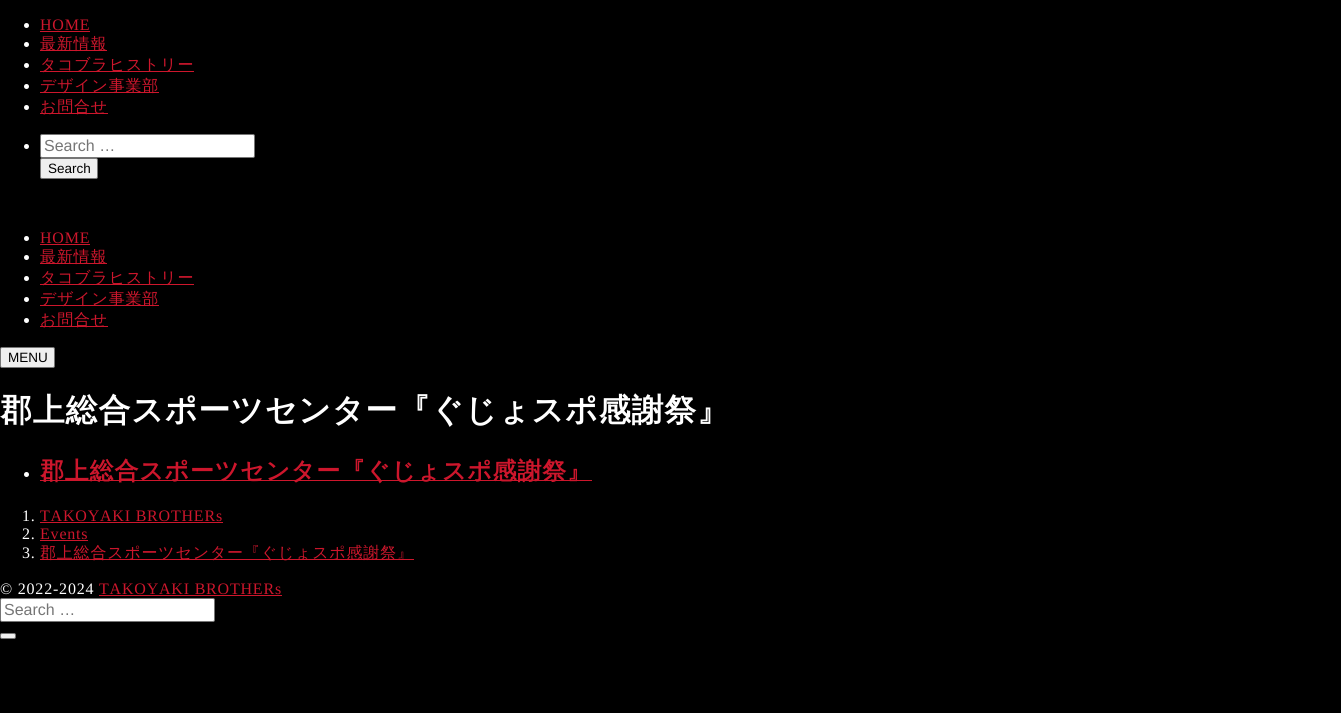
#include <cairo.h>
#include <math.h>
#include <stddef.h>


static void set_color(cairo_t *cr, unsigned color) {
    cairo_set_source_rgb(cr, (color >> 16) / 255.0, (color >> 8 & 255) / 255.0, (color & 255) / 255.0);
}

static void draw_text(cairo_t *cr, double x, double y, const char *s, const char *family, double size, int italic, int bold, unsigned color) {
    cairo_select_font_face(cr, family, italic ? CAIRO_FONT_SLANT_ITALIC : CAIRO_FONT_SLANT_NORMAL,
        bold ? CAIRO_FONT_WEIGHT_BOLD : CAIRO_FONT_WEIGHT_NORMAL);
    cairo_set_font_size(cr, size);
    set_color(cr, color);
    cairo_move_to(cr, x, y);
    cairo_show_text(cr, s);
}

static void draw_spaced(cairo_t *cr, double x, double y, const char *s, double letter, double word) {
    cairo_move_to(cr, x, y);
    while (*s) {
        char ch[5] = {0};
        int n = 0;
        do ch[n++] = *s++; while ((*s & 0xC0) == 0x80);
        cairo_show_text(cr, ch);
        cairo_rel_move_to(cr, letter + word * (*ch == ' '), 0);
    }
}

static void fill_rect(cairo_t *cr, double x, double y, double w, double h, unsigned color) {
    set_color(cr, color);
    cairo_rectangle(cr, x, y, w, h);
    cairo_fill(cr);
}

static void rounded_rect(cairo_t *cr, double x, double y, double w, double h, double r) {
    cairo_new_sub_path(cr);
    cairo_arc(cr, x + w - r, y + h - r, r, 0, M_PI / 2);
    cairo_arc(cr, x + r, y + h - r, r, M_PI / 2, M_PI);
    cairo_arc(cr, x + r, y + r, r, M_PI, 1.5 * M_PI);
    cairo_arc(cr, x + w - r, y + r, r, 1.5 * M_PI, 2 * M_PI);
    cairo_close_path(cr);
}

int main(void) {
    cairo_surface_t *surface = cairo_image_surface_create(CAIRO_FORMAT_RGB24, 1341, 713);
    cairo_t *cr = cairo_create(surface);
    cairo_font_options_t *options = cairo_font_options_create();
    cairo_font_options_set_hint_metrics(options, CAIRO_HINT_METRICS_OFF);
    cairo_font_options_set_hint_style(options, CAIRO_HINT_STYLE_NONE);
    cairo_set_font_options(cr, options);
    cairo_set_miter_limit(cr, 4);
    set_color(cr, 0x000000);
    cairo_paint(cr);
    set_color(cr, 0xFFFFFF);
    cairo_arc(cr, 26.5, 25.5, 2.5, 0, 2 * M_PI);
    cairo_fill(cr);
    cairo_select_font_face(cr, "Liberation Serif", CAIRO_FONT_SLANT_NORMAL, CAIRO_FONT_WEIGHT_NORMAL);
    cairo_set_font_size(cr, 16);
    set_color(cr, 0xCD162C);
    draw_spaced(cr, 40, 30, "HOME", 0.8, 0);
    fill_rect(cr, 40, 31, 50, 1, 0xCD162C);
    set_color(cr, 0xFFFFFF);
    cairo_new_path(cr);
    cairo_arc(cr, 26.5, 44.5, 2.5, 0, 2 * M_PI);
    cairo_fill(cr);
    fill_rect(cr, 40, 50, 67, 1, 0xCD162C);
    cairo_select_font_face(cr, "WenQuanYi Zen Hei Medium", CAIRO_FONT_SLANT_NORMAL, CAIRO_FONT_WEIGHT_NORMAL);
    draw_spaced(cr, 40, 49, "最新情報", 0.8, 0);
    set_color(cr, 0xFFFFFF);
    cairo_new_path(cr);
    cairo_arc(cr, 26.5, 65.5, 2.5, 0, 2 * M_PI);
    cairo_fill(cr);
    fill_rect(cr, 40, 71, 154, 1, 0xCD162C);
    draw_spaced(cr, 40, 70, "タコブラヒストリー", 0.8, 0);
    set_color(cr, 0xFFFFFF);
    cairo_new_path(cr);
    cairo_arc(cr, 26.5, 86.5, 2.5, 0, 2 * M_PI);
    cairo_fill(cr);
    fill_rect(cr, 40, 92, 119, 1, 0xCD162C);
    draw_spaced(cr, 40, 91, "デザイン事業部", 0.8, 0);
    set_color(cr, 0xFFFFFF);
    cairo_new_path(cr);
    cairo_arc(cr, 26.5, 107.5, 2.5, 0, 2 * M_PI);
    cairo_fill(cr);
    fill_rect(cr, 40, 113, 68, 1, 0xCD162C);
    draw_spaced(cr, 40, 112, "お問合せ", 0.8, 0);
    set_color(cr, 0xFFFFFF);
    cairo_new_path(cr);
    cairo_arc(cr, 26.5, 146.5, 2.5, 0, 2 * M_PI);
    cairo_fill(cr);
    rounded_rect(cr, 40.5, 134.5, 214, 23, 1.5);
    cairo_fill_preserve(cr);
    set_color(cr, 0x767676);
    cairo_set_line_width(cr, 1);
    cairo_stroke(cr);
    draw_text(cr, 44, 151, "Search …", "Liberation Sans", 16, 0, 0, 0x757575);
    set_color(cr, 0xEFEFEF);
    rounded_rect(cr, 40.5, 158.5, 57, 20, 1.5);
    cairo_fill_preserve(cr);
    set_color(cr, 0x767676);
    cairo_stroke(cr);
    draw_text(cr, 48, 173, "Search", "Liberation Sans", 13.5, 0, 0, 0x000000);
    set_color(cr, 0xFFFFFF);
    cairo_new_path(cr);
    cairo_arc(cr, 26.5, 238.5, 2.5, 0, 2 * M_PI);
    cairo_fill(cr);
    cairo_select_font_face(cr, "Liberation Serif", CAIRO_FONT_SLANT_NORMAL, CAIRO_FONT_WEIGHT_NORMAL);
    cairo_set_font_size(cr, 16);
    set_color(cr, 0xCD162C);
    draw_spaced(cr, 40, 243, "HOME", 0.8, 0);
    fill_rect(cr, 40, 244, 50, 1, 0xCD162C);
    set_color(cr, 0xFFFFFF);
    cairo_new_path(cr);
    cairo_arc(cr, 26.5, 257.5, 2.5, 0, 2 * M_PI);
    cairo_fill(cr);
    fill_rect(cr, 40, 263, 67, 1, 0xCD162C);
    cairo_select_font_face(cr, "WenQuanYi Zen Hei Medium", CAIRO_FONT_SLANT_NORMAL, CAIRO_FONT_WEIGHT_NORMAL);
    draw_spaced(cr, 40, 262, "最新情報", 0.8, 0);
    set_color(cr, 0xFFFFFF);
    cairo_new_path(cr);
    cairo_arc(cr, 26.5, 278.5, 2.5, 0, 2 * M_PI);
    cairo_fill(cr);
    fill_rect(cr, 40, 284, 154, 1, 0xCD162C);
    draw_spaced(cr, 40, 283, "タコブラヒストリー", 0.8, 0);
    set_color(cr, 0xFFFFFF);
    cairo_new_path(cr);
    cairo_arc(cr, 26.5, 299.5, 2.5, 0, 2 * M_PI);
    cairo_fill(cr);
    fill_rect(cr, 40, 305, 119, 1, 0xCD162C);
    draw_spaced(cr, 40, 304, "デザイン事業部", 0.8, 0);
    set_color(cr, 0xFFFFFF);
    cairo_new_path(cr);
    cairo_arc(cr, 26.5, 320.5, 2.5, 0, 2 * M_PI);
    cairo_fill(cr);
    fill_rect(cr, 40, 326, 68, 1, 0xCD162C);
    draw_spaced(cr, 40, 325, "お問合せ", 0.8, 0);
    set_color(cr, 0xEFEFEF);
    rounded_rect(cr, 0.5, 347.5, 54, 20, 1.5);
    cairo_fill_preserve(cr);
    set_color(cr, 0x767676);
    cairo_stroke(cr);
    draw_text(cr, 8, 362, "MENU", "Liberation Sans", 13.5, 0, 0, 0x000000);
    cairo_select_font_face(cr, "WenQuanYi Zen Hei", CAIRO_FONT_SLANT_NORMAL, CAIRO_FONT_WEIGHT_BOLD);
    cairo_set_font_size(cr, 32);
    set_color(cr, 0xFFFFFF);
    draw_spaced(cr, 0, 421, "郡上総合スポーツセンター『ぐじょスポ感謝祭』", 0.8, 0);
    cairo_new_path(cr);
    cairo_arc(cr, 26.5, 474.5, 2.5, 0, 2 * M_PI);
    cairo_fill(cr);
    fill_rect(cr, 40, 480, 552, 1, 0xCD162C);
    cairo_set_font_size(cr, 24);
    draw_spaced(cr, 40, 479, "郡上総合スポーツセンター『ぐじょスポ感謝祭』", 0.8, 0);
    cairo_select_font_face(cr, "Liberation Serif", CAIRO_FONT_SLANT_NORMAL, CAIRO_FONT_WEIGHT_NORMAL);
    cairo_set_font_size(cr, 16);
    set_color(cr, 0xFFFFFF);
    draw_spaced(cr, 22, 521, "1.", 0.8, 0);
    set_color(cr, 0xCD162C);
    draw_spaced(cr, 40, 521, "TAKOYAKI BROTHERs", 0.8, 0);
    fill_rect(cr, 40, 522, 183, 1, 0xCD162C);
    set_color(cr, 0xFFFFFF);
    draw_spaced(cr, 22, 539, "2.", 0.8, 0);
    set_color(cr, 0xCD162C);
    draw_spaced(cr, 40, 539, "Events", 0.8, 0);
    fill_rect(cr, 40, 540, 48, 1, 0xCD162C);
    set_color(cr, 0xFFFFFF);
    draw_spaced(cr, 22, 558, "3.", 0.8, 0);
    fill_rect(cr, 40, 559, 374, 1, 0xCD162C);
    cairo_select_font_face(cr, "WenQuanYi Zen Hei Medium", CAIRO_FONT_SLANT_NORMAL, CAIRO_FONT_WEIGHT_NORMAL);
    draw_spaced(cr, 40, 558, "郡上総合スポーツセンター『ぐじょスポ感謝祭』", 0.8, 0);
    cairo_select_font_face(cr, "Liberation Serif", CAIRO_FONT_SLANT_NORMAL, CAIRO_FONT_WEIGHT_NORMAL);
    set_color(cr, 0xFFFFFF);
    draw_spaced(cr, 0, 594, "© 2022-2024", 0.8, 0);
    set_color(cr, 0xCD162C);
    draw_spaced(cr, 99, 594, "TAKOYAKI BROTHERs", 0.8, 0);
    fill_rect(cr, 99, 595, 183, 1, 0xCD162C);
    set_color(cr, 0xFFFFFF);
    rounded_rect(cr, 0.5, 598.5, 214, 23, 1.5);
    cairo_fill_preserve(cr);
    set_color(cr, 0x767676);
    cairo_stroke(cr);
    draw_text(cr, 4, 615, "Search …", "Liberation Sans", 16, 0, 0, 0x757575);
    set_color(cr, 0xEFEFEF);
    rounded_rect(cr, 0.5, 633.5, 15, 5, 1.5);
    cairo_fill_preserve(cr);
    set_color(cr, 0x767676);
    cairo_stroke(cr);
    cairo_surface_write_to_png(surface, "output.png");
    cairo_font_options_destroy(options);
    cairo_destroy(cr);
    cairo_surface_destroy(surface);
    return 0;
}
